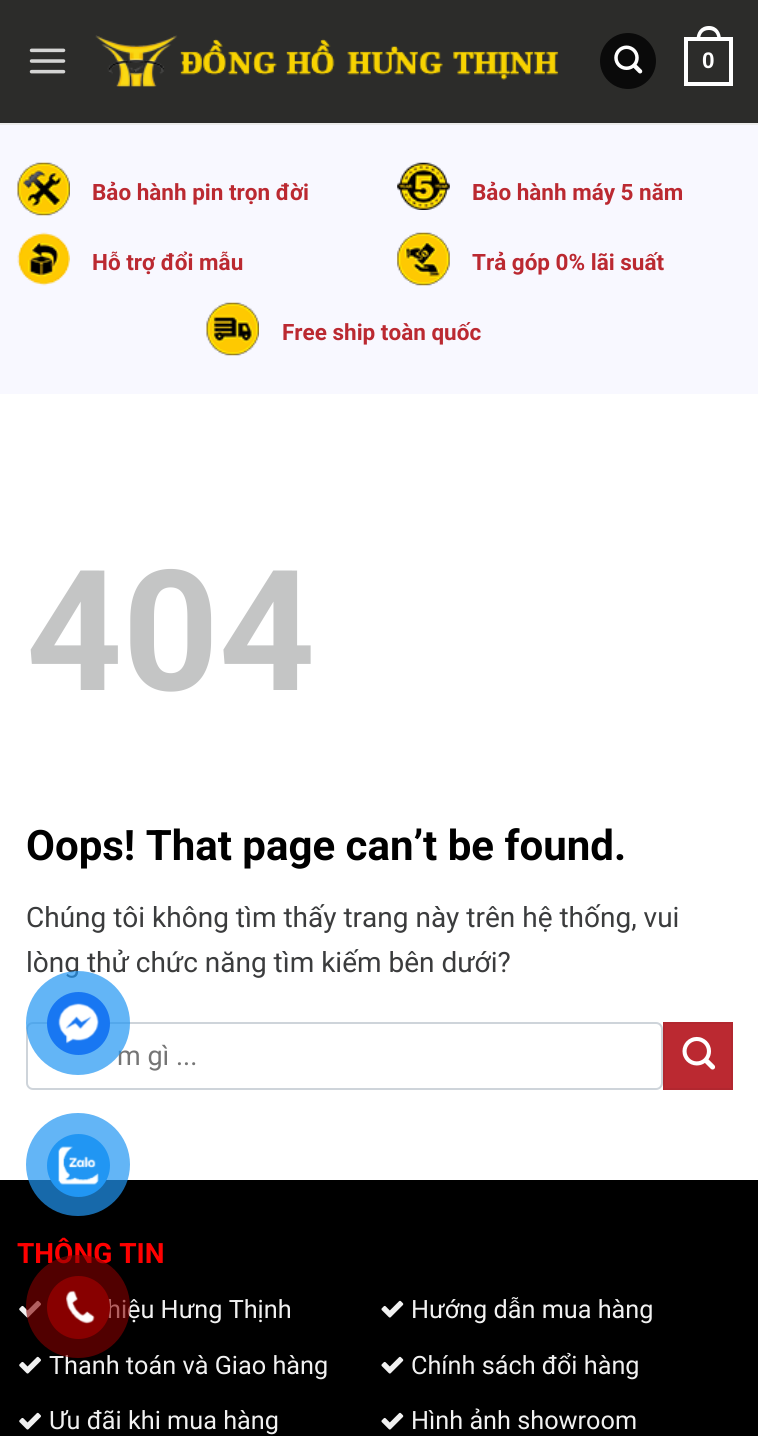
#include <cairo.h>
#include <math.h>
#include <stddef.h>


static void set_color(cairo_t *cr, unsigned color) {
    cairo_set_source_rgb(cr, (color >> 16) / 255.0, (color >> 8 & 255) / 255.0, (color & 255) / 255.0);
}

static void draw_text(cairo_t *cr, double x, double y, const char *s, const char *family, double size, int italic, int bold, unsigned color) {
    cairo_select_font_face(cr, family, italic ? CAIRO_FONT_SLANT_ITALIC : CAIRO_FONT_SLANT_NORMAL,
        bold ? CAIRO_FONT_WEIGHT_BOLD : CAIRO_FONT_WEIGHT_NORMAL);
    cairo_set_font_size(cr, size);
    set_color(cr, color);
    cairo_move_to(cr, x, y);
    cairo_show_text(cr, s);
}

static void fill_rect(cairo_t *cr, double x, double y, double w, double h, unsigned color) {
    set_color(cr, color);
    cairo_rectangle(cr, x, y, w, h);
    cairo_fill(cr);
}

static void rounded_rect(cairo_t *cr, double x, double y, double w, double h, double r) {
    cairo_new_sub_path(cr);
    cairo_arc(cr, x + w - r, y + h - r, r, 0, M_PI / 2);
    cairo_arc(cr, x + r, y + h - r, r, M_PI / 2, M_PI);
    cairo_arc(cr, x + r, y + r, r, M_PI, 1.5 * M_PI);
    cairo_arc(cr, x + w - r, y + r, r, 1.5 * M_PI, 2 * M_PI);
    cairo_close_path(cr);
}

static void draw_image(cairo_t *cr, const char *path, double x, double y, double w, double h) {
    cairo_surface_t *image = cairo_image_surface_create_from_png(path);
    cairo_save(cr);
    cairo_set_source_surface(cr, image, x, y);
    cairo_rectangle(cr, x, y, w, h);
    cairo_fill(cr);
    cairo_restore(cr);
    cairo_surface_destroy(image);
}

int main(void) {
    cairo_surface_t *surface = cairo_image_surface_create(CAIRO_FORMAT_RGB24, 758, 1436);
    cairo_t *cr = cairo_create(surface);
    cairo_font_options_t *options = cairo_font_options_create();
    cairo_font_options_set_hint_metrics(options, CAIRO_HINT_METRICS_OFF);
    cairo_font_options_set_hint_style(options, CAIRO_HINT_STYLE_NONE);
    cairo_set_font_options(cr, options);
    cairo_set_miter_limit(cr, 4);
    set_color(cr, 0xFFFFFF);
    cairo_paint(cr);
    fill_rect(cr, 0, 0, 758, 123, 0x2C2C2A);
    draw_image(cr, "assets/img1.png", 29, 48, 37, 26);
    draw_image(cr, "assets/img2.png", 95, 35, 464, 52);
    set_color(cr, 0x0A0A0A);
    cairo_arc(cr, 628, 61, 28, 0, 2 * M_PI);
    cairo_fill(cr);
    draw_image(cr, "assets/img3.png", 614, 45, 29, 29);
    cairo_rectangle(cr, 686, 39, 45, 45);
    set_color(cr, 0xFFFFFF);
    cairo_set_line_width(cr, 4);
    cairo_stroke(cr);
    cairo_set_fill_rule(cr, CAIRO_FILL_RULE_EVEN_ODD);
    cairo_new_path(cr);
    cairo_move_to(cr, 709, 26);
    cairo_curve_to(cr, 717, 26, 721, 32.5, 721, 40);
    cairo_line_to(cr, 696.5, 40);
    cairo_curve_to(cr, 696.5, 32.5, 700.5, 26, 709, 26);
    cairo_close_path(cr);
    cairo_move_to(cr, 709, 30);
    cairo_curve_to(cr, 715, 30, 717.5, 34.5, 717.5, 40);
    cairo_line_to(cr, 700, 40);
    cairo_curve_to(cr, 700, 34.5, 702.5, 30, 709, 30);
    cairo_close_path(cr);
    cairo_fill(cr);
    draw_text(cr, 702, 68, "0", "Liberation Sans", 22.5, 0, 1, 0xFFFFFF);
    fill_rect(cr, 0, 125, 758, 269, 0xF8F8FF);
    fill_rect(cr, 0, 123, 758, 2, 0xEBEBEB);
    draw_image(cr, "assets/img4.png", 17, 162, 53, 54);
    draw_text(cr, 92, 200, "Bảo hành pin trọn đời", "Roboto", 22.5, 0, 1, 0xBB2931);
    draw_image(cr, "assets/img5.png", 397, 162, 53, 48);
    draw_text(cr, 472, 200, "Bảo hành máy 5 năm", "Roboto", 22.5, 0, 1, 0xBB2931);
    draw_image(cr, "assets/img6.png", 17, 232, 53, 54);
    draw_text(cr, 92, 270, "Hỗ trợ đổi mẫu", "Roboto", 22.5, 0, 1, 0xBB2931);
    draw_image(cr, "assets/img7.png", 397, 232, 53, 54);
    draw_text(cr, 472, 270, "Trả góp 0% lãi suất", "Roboto", 22.5, 0, 1, 0xBB2931);
    draw_image(cr, "assets/img8.png", 206, 302, 53, 54);
    draw_text(cr, 282, 340, "Free ship toàn quốc", "Roboto", 22.5, 0, 1, 0xBB2931);
    draw_text(cr, 26, 690, "404", "Roboto", 168, 0, 1, 0xC4C5C5);
    draw_text(cr, 26, 860, "Oops! That page can’t be found.", "Roboto", 42, 0, 1, 0x000000);
    draw_text(cr, 26, 927, "Chúng tôi không tìm thấy trang này trên hệ thống, vui", "Roboto", 28, 0, 0, 0x3B3C3D);
    draw_text(cr, 26, 972, "lòng thử chức năng tìm kiếm bên dưới?", "Roboto", 28, 0, 0, 0x3B3C3D);
    rounded_rect(cr, 27, 1023, 635, 66, 6);
    set_color(cr, 0xCED4DA);
    cairo_set_line_width(cr, 2);
    cairo_stroke(cr);
    draw_text(cr, 117, 1065, "m gì ...", "Roboto", 27, 0, 0, 0x757575);
    set_color(cr, 0xBB2931);
    cairo_rectangle(cr, 664, 1023, 68, 66);
    cairo_fill_preserve(cr);
    set_color(cr, 0xB2272F);
    cairo_stroke(cr);
    draw_image(cr, "assets/img9.png", 682, 1036, 34, 34);
    fill_rect(cr, 0, 1180, 758, 256, 0x000000);
    draw_text(cr, 17, 1263, "THÔNG TIN", "Roboto", 28, 0, 1, 0xFF0000);
    draw_image(cr, "assets/img10.png", 19, 1300, 22, 18);
    draw_text(cr, 107, 1318, "hiệu Hưng Thịnh", "Roboto", 25.25, 0, 0, 0xF1F1F1);
    draw_image(cr, "assets/img11.png", 381, 1300, 23, 18);
    draw_text(cr, 411, 1318, "Hướng dẫn mua hàng", "Roboto", 25.25, 0, 0, 0xF1F1F1);
    draw_image(cr, "assets/img10.png", 19, 1356, 22, 18);
    draw_text(cr, 49, 1374, "Thanh toán và Giao hàng", "Roboto", 25.25, 0, 0, 0xF1F1F1);
    draw_image(cr, "assets/img11.png", 381, 1356, 23, 18);
    draw_text(cr, 411, 1374, "Chính sách đổi hàng", "Roboto", 25.25, 0, 0, 0xF1F1F1);
    draw_image(cr, "assets/img10.png", 19, 1412, 22, 18);
    draw_text(cr, 49, 1429, "Ưu đãi khi mua hàng", "Roboto", 25.25, 0, 0, 0xF1F1F1);
    draw_image(cr, "assets/img11.png", 381, 1412, 23, 18);
    draw_text(cr, 411, 1429, "Hình ảnh showroom", "Roboto", 25.25, 0, 0, 0xF1F1F1);
    cairo_set_source_rgba(cr, 0.129, 0.588, 0.953, 0.7);
    cairo_new_path(cr);
    cairo_arc(cr, 78, 1023, 52, 0, 2 * M_PI);
    cairo_fill(cr);
    set_color(cr, 0x1877F2);
    cairo_arc(cr, 78.5, 1023.5, 31.5, 0, 2 * M_PI);
    cairo_fill(cr);
    draw_image(cr, "assets/img12.png", 58, 1003, 41, 41);
    cairo_set_source_rgba(cr, 0.129, 0.588, 0.953, 0.7);
    rounded_rect(cr, 26, 1113, 104, 103, 51.5);
    cairo_fill(cr);
    set_color(cr, 0x2196F3);
    cairo_arc(cr, 78.5, 1165.5, 31.5, 0, 2 * M_PI);
    cairo_fill(cr);
    draw_image(cr, "assets/img13.png", 58, 1146, 41, 39);
    cairo_set_source_rgba(cr, 0.533, 0, 0, 0.6);
    rounded_rect(cr, 26, 1255, 104, 103, 51.5);
    cairo_fill(cr);
    set_color(cr, 0x880000);
    cairo_arc(cr, 78.5, 1307.5, 31.5, 0, 2 * M_PI);
    cairo_fill(cr);
    draw_image(cr, "assets/img14.png", 66, 1290, 29, 34);
    cairo_surface_write_to_png(surface, "output.png");
    cairo_font_options_destroy(options);
    cairo_destroy(cr);
    cairo_surface_destroy(surface);
    return 0;
}
